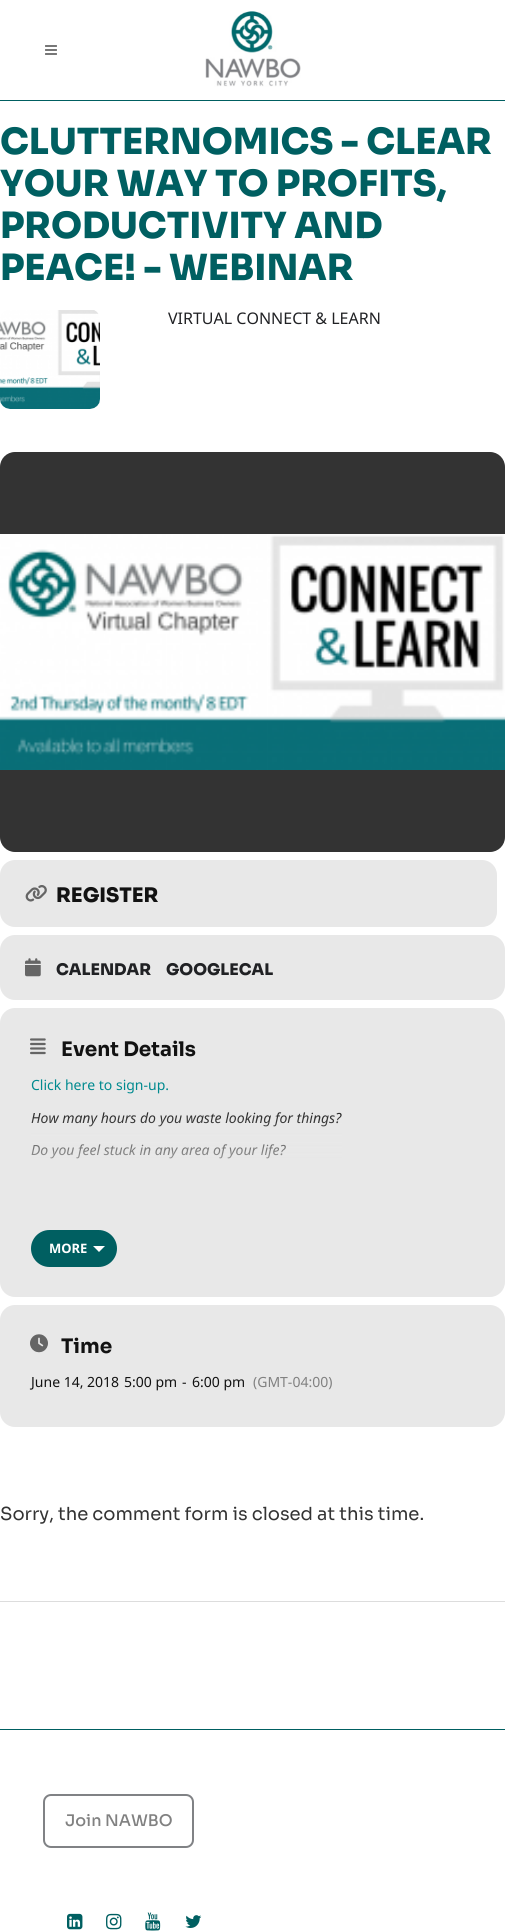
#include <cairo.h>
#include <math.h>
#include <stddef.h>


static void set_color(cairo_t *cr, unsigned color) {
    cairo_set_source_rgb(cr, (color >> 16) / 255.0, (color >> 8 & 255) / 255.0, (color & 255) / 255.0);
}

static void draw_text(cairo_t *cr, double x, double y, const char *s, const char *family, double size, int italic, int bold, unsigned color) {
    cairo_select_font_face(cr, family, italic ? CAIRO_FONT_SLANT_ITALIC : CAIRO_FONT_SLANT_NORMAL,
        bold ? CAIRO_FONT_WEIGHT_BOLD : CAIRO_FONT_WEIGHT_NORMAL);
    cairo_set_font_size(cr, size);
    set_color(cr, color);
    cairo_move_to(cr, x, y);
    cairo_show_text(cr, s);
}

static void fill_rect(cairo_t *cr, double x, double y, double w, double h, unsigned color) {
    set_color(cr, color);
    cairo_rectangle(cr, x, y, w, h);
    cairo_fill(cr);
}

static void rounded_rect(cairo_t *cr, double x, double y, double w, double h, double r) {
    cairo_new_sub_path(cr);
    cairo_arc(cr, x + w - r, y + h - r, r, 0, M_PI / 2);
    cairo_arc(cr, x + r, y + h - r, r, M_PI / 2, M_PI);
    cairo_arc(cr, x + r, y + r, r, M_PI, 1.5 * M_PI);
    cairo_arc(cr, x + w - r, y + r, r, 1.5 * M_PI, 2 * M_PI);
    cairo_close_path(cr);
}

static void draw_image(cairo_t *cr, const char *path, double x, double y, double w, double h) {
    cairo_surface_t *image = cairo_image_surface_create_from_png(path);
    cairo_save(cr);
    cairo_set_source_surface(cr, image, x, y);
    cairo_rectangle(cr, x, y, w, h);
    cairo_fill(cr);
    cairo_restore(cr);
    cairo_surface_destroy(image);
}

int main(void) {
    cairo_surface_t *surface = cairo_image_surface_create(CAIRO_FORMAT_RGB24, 505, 1931);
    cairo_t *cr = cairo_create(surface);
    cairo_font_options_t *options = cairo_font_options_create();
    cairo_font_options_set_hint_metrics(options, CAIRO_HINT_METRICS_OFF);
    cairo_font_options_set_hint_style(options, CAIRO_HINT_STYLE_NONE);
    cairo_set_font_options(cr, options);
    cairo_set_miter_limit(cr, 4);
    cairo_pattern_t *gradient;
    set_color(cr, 0xFFFFFF);
    cairo_paint(cr);
    fill_rect(cr, 0, 100, 505, 1, 0x005F61);
    draw_image(cr, "assets/img1.png", 45, 45, 12, 10);
    draw_image(cr, "assets/img2.png", 205, 11, 96, 76);
    draw_text(cr, 0, 154, "CLUTTERNOMICS - CLEAR", "Sora ExtraBold", 36, 0, 0, 0x005F61);
    draw_text(cr, 0, 196, "YOUR WAY TO PROFITS,", "Sora ExtraBold", 36, 0, 0, 0x005F61);
    draw_text(cr, 0, 238, "PRODUCTIVITY AND", "Sora ExtraBold", 36, 0, 0, 0x005F61);
    draw_text(cr, 0, 280, "PEACE! - WEBINAR", "Sora ExtraBold", 36, 0, 0, 0x005F61);
    draw_image(cr, "assets/img3.png", 0, 310, 100, 99);
    draw_text(cr, 168, 324, "VIRTUAL CONNECT & LEARN", "Noto Sans", 16, 0, 0, 0x202124);
    set_color(cr, 0x333333);
    rounded_rect(cr, 0, 452, 505, 400, 15);
    cairo_fill(cr);
    draw_image(cr, "assets/img4.png", 0, 534, 505, 236);
    set_color(cr, 0xE8E8E8);
    rounded_rect(cr, 0, 860, 497, 67, 15);
    cairo_fill(cr);
    draw_image(cr, "assets/img5.png", 25, 885, 22, 17);
    draw_text(cr, 56, 902, "REGISTER", "Sora ExtraBold", 20, 0, 0, 0x121212);
    set_color(cr, 0xE8E8E8);
    rounded_rect(cr, 0, 935, 505, 65, 15);
    cairo_fill(cr);
    draw_image(cr, "assets/img6.png", 25, 958, 16, 19);
    draw_text(cr, 56, 975, "CALENDAR", "Sora ExtraBold", 16, 0, 0, 0x202124);
    draw_text(cr, 166, 975, "GOOGLECAL", "Sora ExtraBold", 16, 0, 0, 0x202124);
    set_color(cr, 0xE8E8E8);
    rounded_rect(cr, 0, 1008, 505, 289, 15);
    cairo_fill(cr);
    draw_image(cr, "assets/img7.png", 30, 1038, 16, 17);
    draw_text(cr, 61, 1056, "Event Details", "Sora", 20, 0, 1, 0x121212);
    draw_text(cr, 31, 1090, "Click here to sign-up.", "Noto Sans", 14, 0, 0, 0x008A8F);
    draw_text(cr, 31, 1123, "How many hours do you waste looking for things?", "Noto Sans", 14, 1, 0, 0x121212);
    draw_text(cr, 31, 1155, "Do you feel stuck in any area of your life?", "Noto Sans", 14, 1, 0, 0x121212);
    gradient = cairo_pattern_create_linear(253, 1225, 253, 1075);
    cairo_pattern_add_color_stop_rgba(gradient, 0.2, 0.91, 0.91, 0.91, 1);
    cairo_pattern_add_color_stop_rgba(gradient, 0.8, 0.91, 0.91, 0.91, 0);
    cairo_set_source(cr, gradient);
    cairo_pattern_destroy(gradient);
    cairo_rectangle(cr, 31, 1112, 311, 47);
    cairo_fill(cr);
    set_color(cr, 0x005F61);
    rounded_rect(cr, 31, 1230, 86, 37, 18.5);
    cairo_fill(cr);
    draw_text(cr, 49, 1253, "MORE", "Noto Sans", 13, 0, 1, 0xFFFFFF);
    cairo_new_path(cr);
    cairo_move_to(cr, 93, 1246);
    cairo_line_to(cr, 105, 1246);
    cairo_line_to(cr, 99, 1252);
    cairo_close_path(cr);
    cairo_fill(cr);
    set_color(cr, 0xE8E8E8);
    rounded_rect(cr, 0, 1305, 505, 122, 15);
    cairo_fill(cr);
    draw_image(cr, "assets/img8.png", 30, 1334, 18, 19);
    draw_text(cr, 61, 1353, "Time", "Sora", 20, 0, 1, 0x121212);
    draw_text(cr, 31, 1387, "June 14, 2018", "Noto Sans", 14, 0, 0, 0x121212);
    draw_text(cr, 124, 1387, "5:00 pm", "Noto Sans", 14, 0, 0, 0x121212);
    draw_text(cr, 182, 1387, "-", "Noto Sans", 14, 0, 0, 0x121212);
    draw_text(cr, 192, 1387, "6:00 pm", "Noto Sans", 14, 0, 0, 0x121212);
    draw_text(cr, 253, 1387, "(GMT-04:00)", "Noto Sans", 14, 0, 0, 0x818181);
    draw_text(cr, 0, 1520, "Sorry, the comment form is closed at this time.", "Sora", 18, 0, 0, 0x333333);
    fill_rect(cr, 0, 1601, 505, 1, 0xDDDDDD);
    fill_rect(cr, 0, 1729, 505, 1, 0x005F61);
    rounded_rect(cr, 44, 1795, 149, 52, 7);
    set_color(cr, 0x808285);
    cairo_stroke(cr);
    draw_text(cr, 65, 1826, "Join NAWBO", "Sora Medium", 16, 0, 0, 0x818181);
    draw_image(cr, "assets/img9.png", 67, 1913, 16, 17);
    draw_image(cr, "assets/img10.png", 106, 1913, 16, 17);
    draw_image(cr, "assets/img11.png", 145, 1912, 16, 19);
    draw_image(cr, "assets/img12.png", 185, 1915, 17, 13);
    cairo_surface_write_to_png(surface, "output.png");
    cairo_font_options_destroy(options);
    cairo_destroy(cr);
    cairo_surface_destroy(surface);
    return 0;
}
